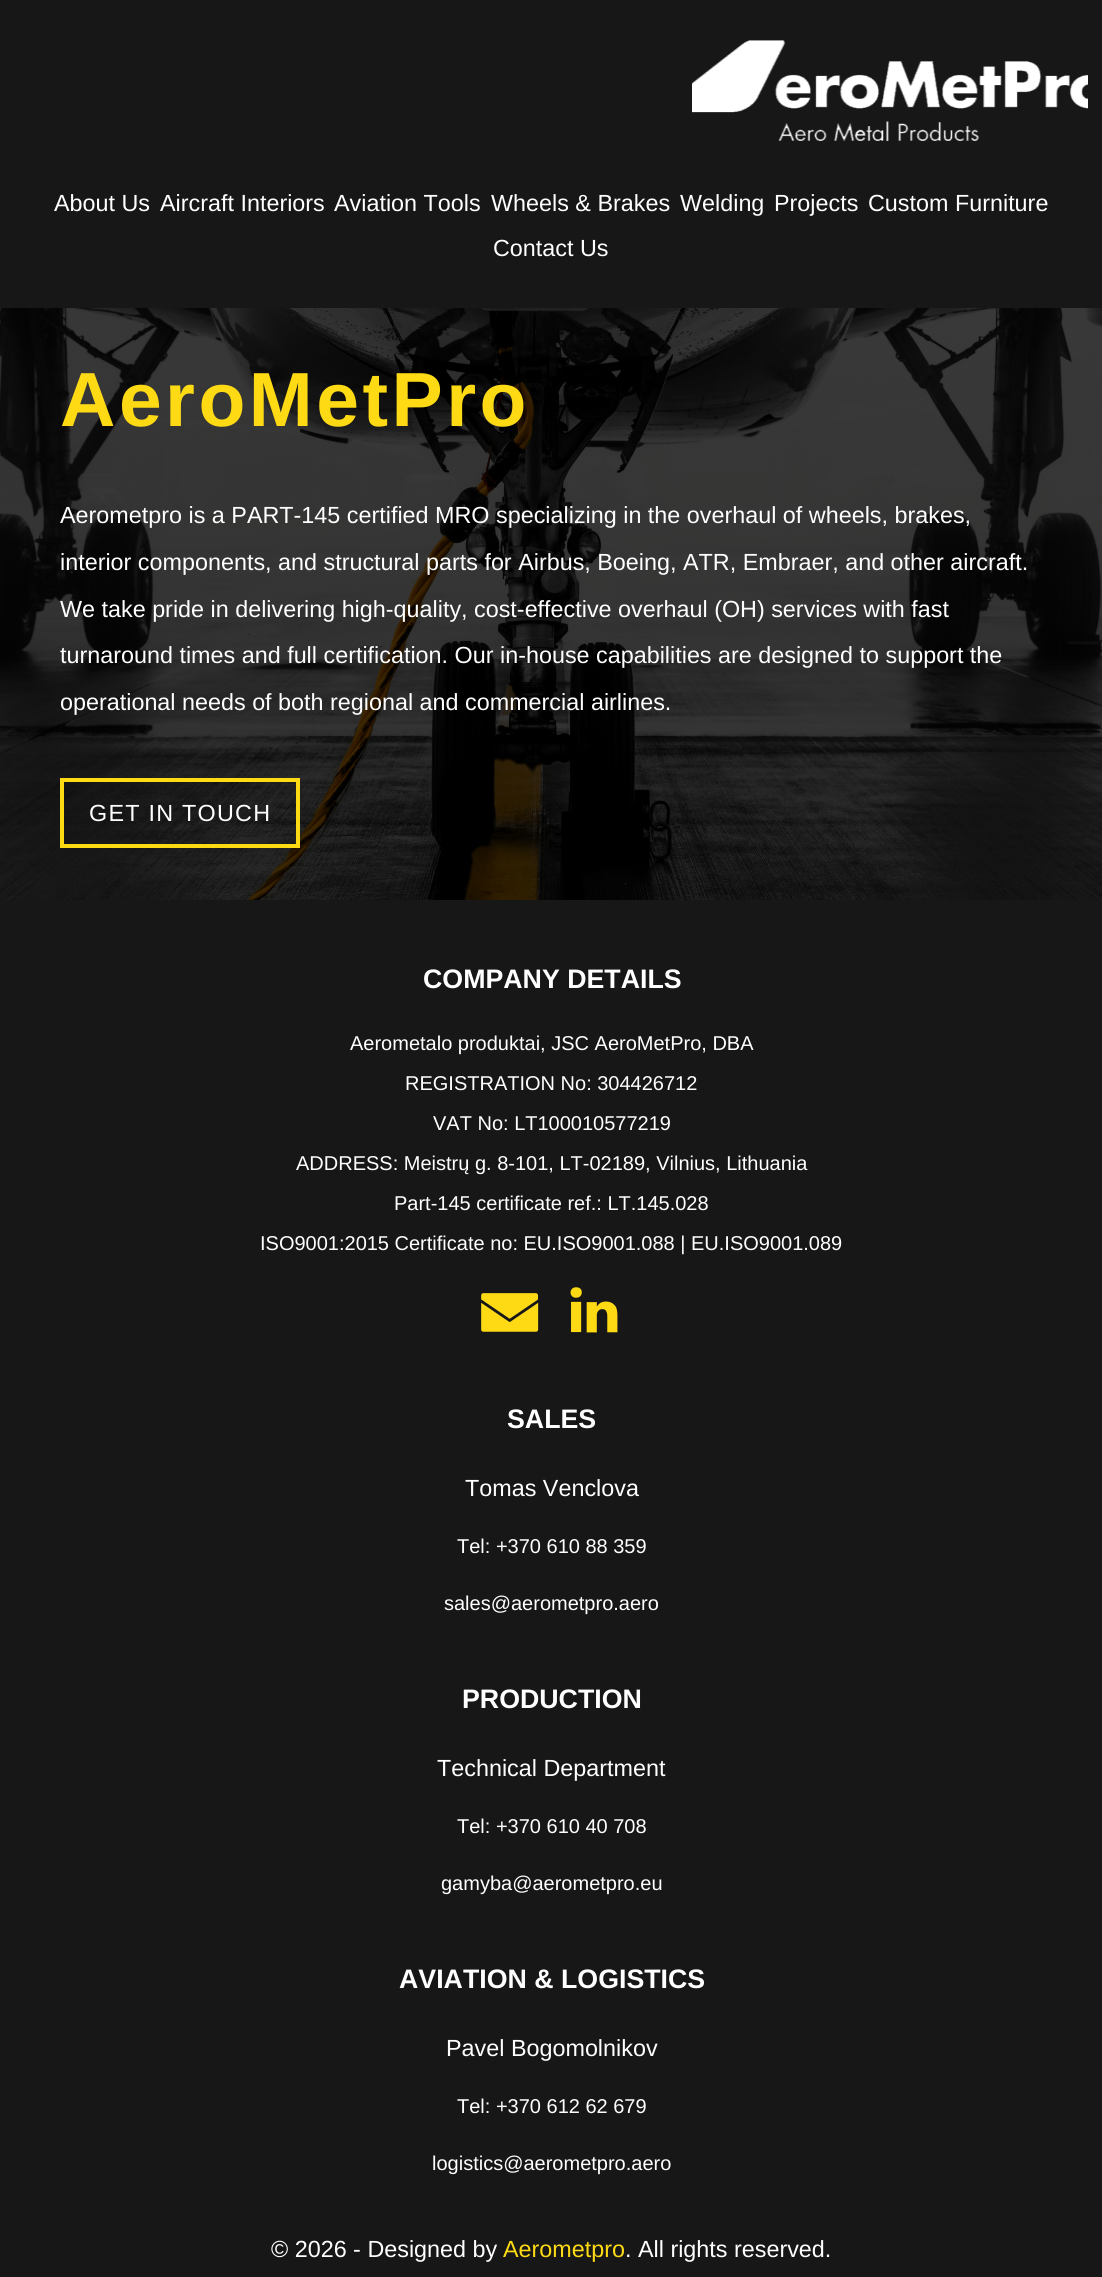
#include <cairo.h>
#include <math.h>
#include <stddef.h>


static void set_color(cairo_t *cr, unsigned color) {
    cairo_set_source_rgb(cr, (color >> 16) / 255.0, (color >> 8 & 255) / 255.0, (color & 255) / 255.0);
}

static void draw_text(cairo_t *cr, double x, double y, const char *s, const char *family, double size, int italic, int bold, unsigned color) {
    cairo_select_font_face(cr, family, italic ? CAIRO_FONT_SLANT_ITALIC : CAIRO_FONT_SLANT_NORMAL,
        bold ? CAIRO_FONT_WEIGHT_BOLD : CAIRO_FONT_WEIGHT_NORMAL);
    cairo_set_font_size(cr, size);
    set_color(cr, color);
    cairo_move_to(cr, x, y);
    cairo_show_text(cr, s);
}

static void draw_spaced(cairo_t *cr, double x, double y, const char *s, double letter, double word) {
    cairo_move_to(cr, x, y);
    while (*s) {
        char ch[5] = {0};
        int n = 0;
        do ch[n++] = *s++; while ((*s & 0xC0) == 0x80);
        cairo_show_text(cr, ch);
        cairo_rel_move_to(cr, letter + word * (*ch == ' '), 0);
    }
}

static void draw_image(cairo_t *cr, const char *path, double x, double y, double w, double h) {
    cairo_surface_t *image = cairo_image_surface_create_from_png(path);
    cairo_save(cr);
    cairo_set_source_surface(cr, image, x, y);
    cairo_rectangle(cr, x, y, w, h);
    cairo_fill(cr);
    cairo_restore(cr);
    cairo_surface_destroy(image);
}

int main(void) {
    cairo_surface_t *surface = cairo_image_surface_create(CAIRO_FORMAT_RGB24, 1102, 2277);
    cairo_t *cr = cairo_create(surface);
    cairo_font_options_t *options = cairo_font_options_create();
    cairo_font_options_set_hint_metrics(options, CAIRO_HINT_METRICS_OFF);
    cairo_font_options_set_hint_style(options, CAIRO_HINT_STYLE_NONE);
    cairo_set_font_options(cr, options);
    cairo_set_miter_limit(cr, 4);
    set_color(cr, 0x171717);
    cairo_paint(cr);
    draw_image(cr, "assets/img1.png", 692, 40, 396, 101);
    draw_text(cr, 54, 211, "About Us", "Liberation Sans", 23.35, 0, 0, 0xFFFFFF);
    draw_text(cr, 160, 211, "Aircraft Interiors", "Liberation Sans", 23.35, 0, 0, 0xFFFFFF);
    draw_text(cr, 334, 211, "Aviation Tools", "Liberation Sans", 23.35, 0, 0, 0xFFFFFF);
    draw_text(cr, 491, 211, "Wheels & Brakes", "Liberation Sans", 23.35, 0, 0, 0xFFFFFF);
    draw_text(cr, 680, 211, "Welding", "Liberation Sans", 23.35, 0, 0, 0xFFFFFF);
    draw_text(cr, 774, 211, "Projects", "Liberation Sans", 23.35, 0, 0, 0xFFFFFF);
    draw_text(cr, 868, 211, "Custom Furniture", "Liberation Sans", 23.35, 0, 0, 0xFFFFFF);
    draw_text(cr, 493, 256, "Contact Us", "Liberation Sans", 23.35, 0, 0, 0xFFFFFF);
    draw_image(cr, "assets/img2.png", 0, 308, 1102, 592);
    cairo_select_font_face(cr, "Liberation Sans", CAIRO_FONT_SLANT_NORMAL, CAIRO_FONT_WEIGHT_BOLD);
    cairo_set_font_size(cr, 76.75);
    set_color(cr, 0xFEDA15);
    draw_spaced(cr, 60, 426, "AeroMetPro", 3.5, 0);
    draw_text(cr, 60, 523, "Aerometpro is a PART-145 certified MRO specializing in the overhaul of wheels, brakes,", "Liberation Sans", 23.35, 0, 0, 0xFFFFFF);
    draw_text(cr, 60, 570, "interior components, and structural parts for Airbus, Boeing, ATR, Embraer, and other aircraft.", "Liberation Sans", 23.35, 0, 0, 0xFFFFFF);
    draw_text(cr, 60, 617, "We take pride in delivering high-quality, cost-effective overhaul (OH) services with fast", "Liberation Sans", 23.35, 0, 0, 0xFFFFFF);
    draw_text(cr, 60, 663, "turnaround times and full certification. Our in-house capabilities are designed to support the", "Liberation Sans", 23.35, 0, 0, 0xFFFFFF);
    draw_text(cr, 60, 710, "operational needs of both regional and commercial airlines.", "Liberation Sans", 23.35, 0, 0, 0xFFFFFF);
    cairo_rectangle(cr, 62, 780, 236, 66);
    set_color(cr, 0xFEDA15);
    cairo_set_line_width(cr, 4);
    cairo_stroke(cr);
    set_color(cr, 0xFFFFFF);
    draw_spaced(cr, 89, 821, "GET IN TOUCH", 1.25, 0);
    draw_text(cr, 423, 988, "COMPANY DETAILS", "Liberation Sans", 26.75, 0, 1, 0xFFFFFF);
    draw_text(cr, 350, 1050, "Aerometalo produktai, JSC AeroMetPro, DBA", "Liberation Sans", 20, 0, 0, 0xFFFFFF);
    draw_text(cr, 405, 1090, "REGISTRATION No: 304426712", "Liberation Sans", 20, 0, 0, 0xFFFFFF);
    draw_text(cr, 433, 1130, "VAT No: LT100010577219", "Liberation Sans", 20, 0, 0, 0xFFFFFF);
    draw_text(cr, 296, 1170, "ADDRESS: Meistrų g. 8-101, LT-02189, Vilnius, Lithuania", "Liberation Sans", 20, 0, 0, 0xFFFFFF);
    draw_text(cr, 394, 1210, "Part-145 certificate ref.: LT.145.028", "Liberation Sans", 20, 0, 0, 0xFFFFFF);
    draw_text(cr, 260, 1250, "ISO9001:2015 Certificate no: EU.ISO9001.088 | EU.ISO9001.089", "Liberation Sans", 20, 0, 0, 0xFFFFFF);
    draw_image(cr, "assets/img3.png", 481, 1293, 58, 39);
    draw_image(cr, "assets/img4.png", 570, 1287, 48, 46);
    draw_text(cr, 507, 1428, "SALES", "Liberation Sans", 26.75, 0, 1, 0xFFFFFF);
    draw_text(cr, 465, 1496, "Tomas Venclova", "Liberation Sans", 23.35, 0, 0, 0xFFFFFF);
    draw_text(cr, 457, 1553, "Tel: +370 610 88 359", "Liberation Sans", 20, 0, 0, 0xFFFFFF);
    draw_text(cr, 444, 1610, "sales@aerometpro.aero", "Liberation Sans", 20, 0, 0, 0xFFFFFF);
    draw_text(cr, 462, 1708, "PRODUCTION", "Liberation Sans", 26.75, 0, 1, 0xFFFFFF);
    draw_text(cr, 437, 1776, "Technical Department", "Liberation Sans", 23.35, 0, 0, 0xFFFFFF);
    draw_text(cr, 457, 1833, "Tel: +370 610 40 708", "Liberation Sans", 20, 0, 0, 0xFFFFFF);
    draw_text(cr, 441, 1890, "gamyba@aerometpro.eu", "Liberation Sans", 20, 0, 0, 0xFFFFFF);
    draw_text(cr, 399, 1988, "AVIATION & LOGISTICS", "Liberation Sans", 26.75, 0, 1, 0xFFFFFF);
    draw_text(cr, 446, 2056, "Pavel Bogomolnikov", "Liberation Sans", 23.35, 0, 0, 0xFFFFFF);
    draw_text(cr, 457, 2113, "Tel: +370 612 62 679", "Liberation Sans", 20, 0, 0, 0xFFFFFF);
    draw_text(cr, 432, 2170, "logistics@aerometpro.aero", "Liberation Sans", 20, 0, 0, 0xFFFFFF);
    draw_text(cr, 271, 2257, "© 2026 - Designed by", "Liberation Sans", 23.35, 0, 0, 0xFFFFFF);
    draw_text(cr, 503, 2257, "Aerometpro", "Liberation Sans", 23.35, 0, 0, 0xFEDA15);
    draw_text(cr, 625, 2257, ". All rights reserved.", "Liberation Sans", 23.35, 0, 0, 0xFFFFFF);
    cairo_surface_write_to_png(surface, "output.png");
    cairo_font_options_destroy(options);
    cairo_destroy(cr);
    cairo_surface_destroy(surface);
    return 0;
}
